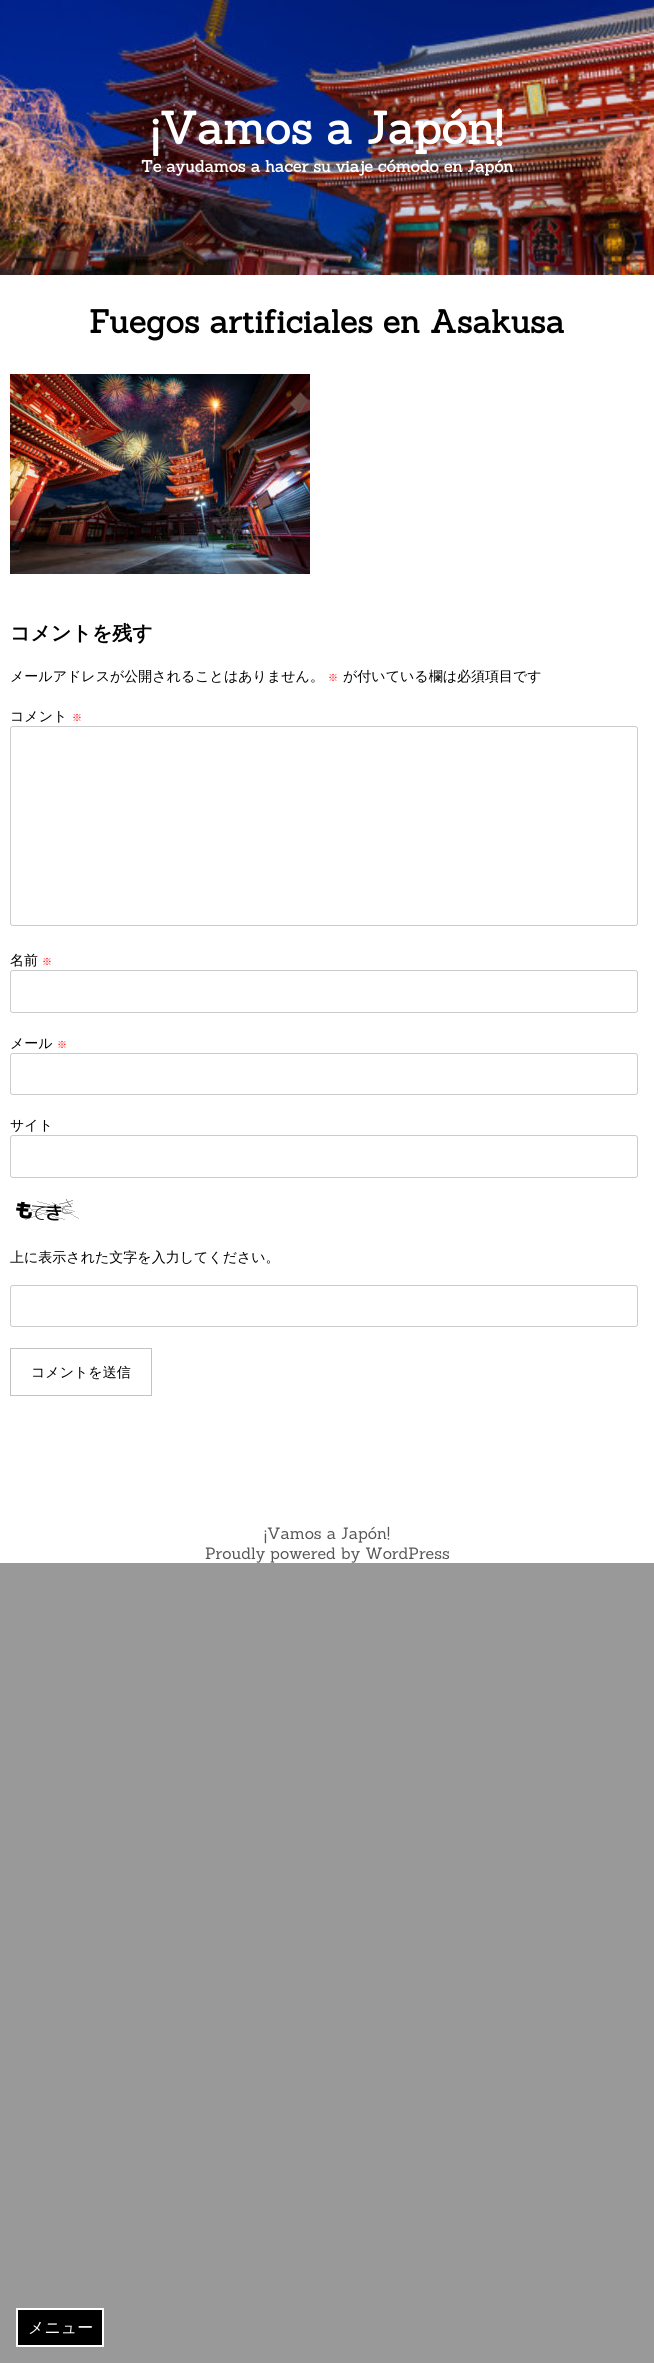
#include <cairo.h>
#include <math.h>
#include <stddef.h>


static void set_color(cairo_t *cr, unsigned color) {
    cairo_set_source_rgb(cr, (color >> 16) / 255.0, (color >> 8 & 255) / 255.0, (color & 255) / 255.0);
}

static void draw_text(cairo_t *cr, double x, double y, const char *s, const char *family, double size, int italic, int bold, unsigned color) {
    cairo_select_font_face(cr, family, italic ? CAIRO_FONT_SLANT_ITALIC : CAIRO_FONT_SLANT_NORMAL,
        bold ? CAIRO_FONT_WEIGHT_BOLD : CAIRO_FONT_WEIGHT_NORMAL);
    cairo_set_font_size(cr, size);
    set_color(cr, color);
    cairo_move_to(cr, x, y);
    cairo_show_text(cr, s);
}

static void fill_rect(cairo_t *cr, double x, double y, double w, double h, unsigned color) {
    set_color(cr, color);
    cairo_rectangle(cr, x, y, w, h);
    cairo_fill(cr);
}

static void rounded_rect(cairo_t *cr, double x, double y, double w, double h, double r) {
    cairo_new_sub_path(cr);
    cairo_arc(cr, x + w - r, y + h - r, r, 0, M_PI / 2);
    cairo_arc(cr, x + r, y + h - r, r, M_PI / 2, M_PI);
    cairo_arc(cr, x + r, y + r, r, M_PI, 1.5 * M_PI);
    cairo_arc(cr, x + w - r, y + r, r, 1.5 * M_PI, 2 * M_PI);
    cairo_close_path(cr);
}

static void draw_image(cairo_t *cr, const char *path, double x, double y, double w, double h) {
    cairo_surface_t *image = cairo_image_surface_create_from_png(path);
    cairo_save(cr);
    cairo_set_source_surface(cr, image, x, y);
    cairo_rectangle(cr, x, y, w, h);
    cairo_fill(cr);
    cairo_restore(cr);
    cairo_surface_destroy(image);
}

int main(void) {
    cairo_surface_t *surface = cairo_image_surface_create(CAIRO_FORMAT_RGB24, 654, 2363);
    cairo_t *cr = cairo_create(surface);
    cairo_font_options_t *options = cairo_font_options_create();
    cairo_font_options_set_hint_metrics(options, CAIRO_HINT_METRICS_OFF);
    cairo_font_options_set_hint_style(options, CAIRO_HINT_STYLE_NONE);
    cairo_set_font_options(cr, options);
    cairo_set_miter_limit(cr, 4);
    set_color(cr, 0x999999);
    cairo_paint(cr);
    fill_rect(cr, 0, 275, 654, 1288, 0xFFFFFF);
    draw_image(cr, "assets/img1.png", 0, 0, 654, 275);
    draw_text(cr, 151, 144, "¡Vamos a Japón!", "Sanchez", 44.75, 0, 1, 0xFFFFFF);
    draw_text(cr, 141, 172, "Te ayudamos a hacer su viaje cómodo en Japón", "Sanchez", 16, 0, 1, 0xFFFFFF);
    draw_text(cr, 89, 333, "Fuegos artificiales en Asakusa", "Sanchez", 32, 0, 1, 0x000000);
    draw_image(cr, "assets/img2.png", 10, 374, 300, 200);
    draw_text(cr, 10, 640, "コメントを残す", "WenQuanYi Zen Hei", 20, 0, 1, 0x000000);
    draw_text(cr, 10, 681, "メールアドレスが公開されることはありません。", "WenQuanYi Zen Hei Medium", 14, 0, 0, 0x000000);
    draw_text(cr, 328, 681, "※", "WenQuanYi Zen Hei Medium", 10, 0, 0, 0xFF0000);
    draw_text(cr, 343, 681, "が付いている欄は必須項目です", "WenQuanYi Zen Hei Medium", 14, 0, 0, 0x000000);
    draw_text(cr, 10, 721, "コメント", "WenQuanYi Zen Hei Medium", 14, 0, 0, 0x000000);
    draw_text(cr, 72, 721, "※", "WenQuanYi Zen Hei Medium", 10, 0, 0, 0xFF0000);
    rounded_rect(cr, 10.5, 726.5, 627, 199, 2.5);
    set_color(cr, 0xCCCCCC);
    cairo_set_line_width(cr, 1);
    cairo_stroke(cr);
    draw_text(cr, 10, 965, "名前", "WenQuanYi Zen Hei Medium", 14, 0, 0, 0x000000);
    draw_text(cr, 42, 965, "※", "WenQuanYi Zen Hei Medium", 10, 0, 0, 0xFF0000);
    rounded_rect(cr, 10.5, 970.5, 627, 42, 2.5);
    set_color(cr, 0xCCCCCC);
    cairo_stroke(cr);
    draw_text(cr, 10, 1048, "メール", "WenQuanYi Zen Hei Medium", 14, 0, 0, 0x000000);
    draw_text(cr, 57, 1048, "※", "WenQuanYi Zen Hei Medium", 10, 0, 0, 0xFF0000);
    rounded_rect(cr, 10.5, 1053.5, 627, 41, 2.5);
    set_color(cr, 0xCCCCCC);
    cairo_stroke(cr);
    draw_text(cr, 10, 1130, "サイト", "WenQuanYi Zen Hei Medium", 14, 0, 0, 0x000000);
    rounded_rect(cr, 10.5, 1135.5, 627, 42, 2.5);
    set_color(cr, 0xCCCCCC);
    cairo_stroke(cr);
    draw_image(cr, "assets/img3.png", 16, 1199, 63, 22);
    draw_text(cr, 10, 1262, "上に表示された文字を入力してください。", "WenQuanYi Zen Hei Medium", 14, 0, 0, 0x000000);
    rounded_rect(cr, 10.5, 1285.5, 627, 41, 2.5);
    set_color(cr, 0xCCCCCC);
    cairo_stroke(cr);
    cairo_rectangle(cr, 10.5, 1348.5, 141, 47);
    set_color(cr, 0xC3C3C3);
    cairo_stroke(cr);
    draw_text(cr, 31, 1377, "コメントを送信", "WenQuanYi Zen Hei Medium", 14, 0, 0, 0x000000);
    draw_text(cr, 264, 1539, "¡Vamos a Japón!", "Sanchez", 16, 0, 0, 0x555555);
    draw_text(cr, 205, 1559, "Proudly powered by WordPress", "Sanchez", 16, 0, 0, 0x555555);
    set_color(cr, 0x000000);
    cairo_rectangle(cr, 17, 2309, 86, 37);
    cairo_fill_preserve(cr);
    set_color(cr, 0xFFFFFF);
    cairo_set_line_width(cr, 2);
    cairo_stroke(cr);
    draw_text(cr, 28, 2333, "メニュー", "WenQuanYi Zen Hei Medium", 16, 0, 0, 0xFFFFFF);
    cairo_surface_write_to_png(surface, "output.png");
    cairo_font_options_destroy(options);
    cairo_destroy(cr);
    cairo_surface_destroy(surface);
    return 0;
}
